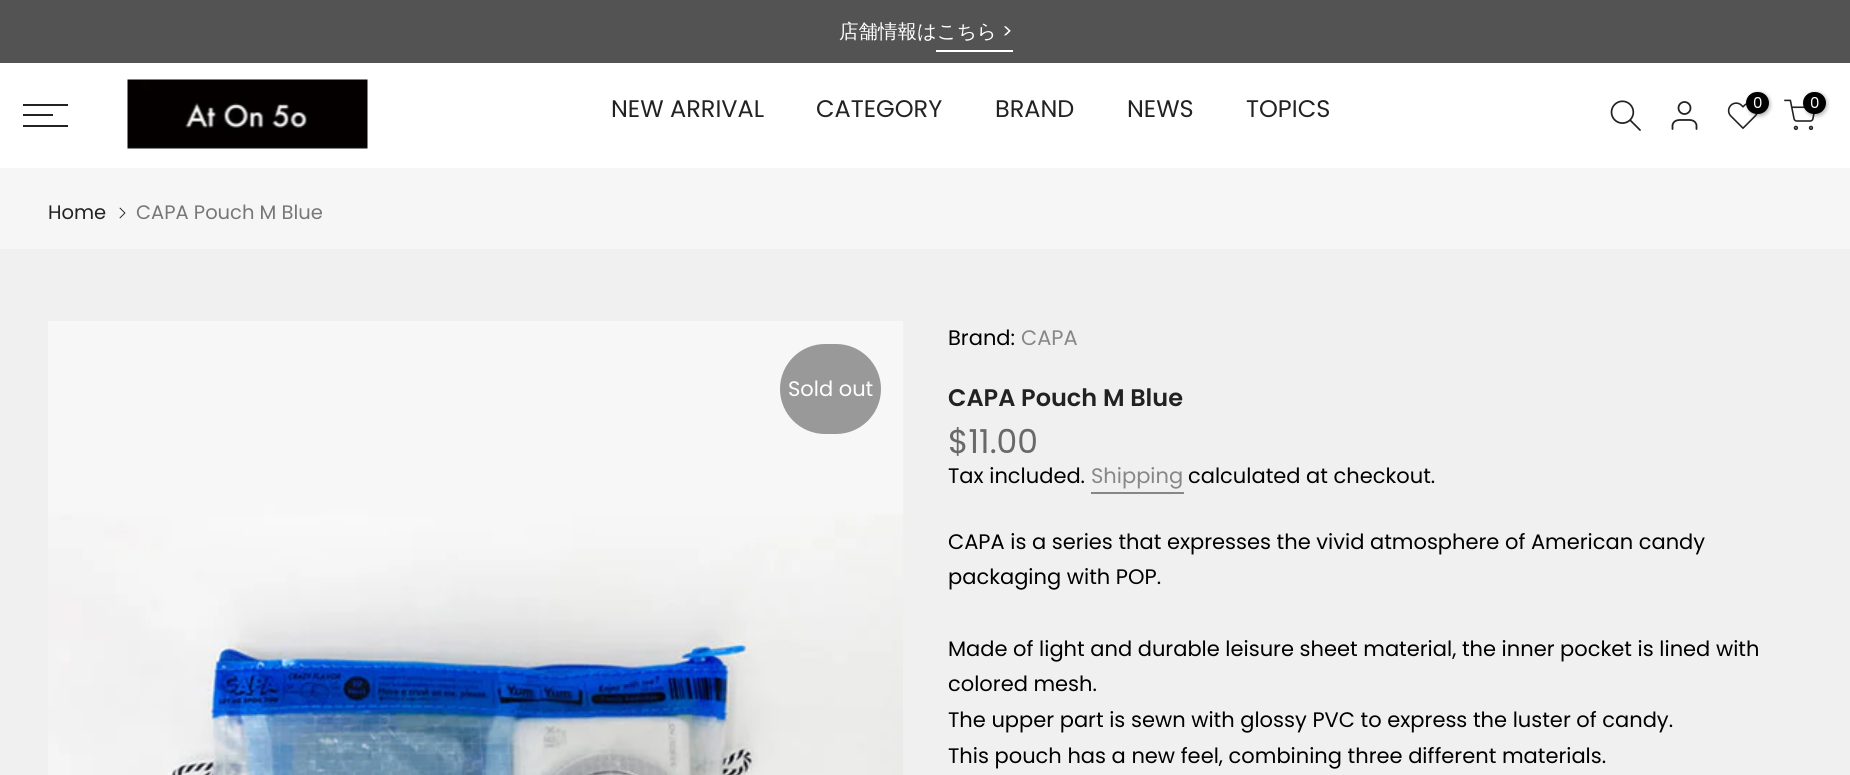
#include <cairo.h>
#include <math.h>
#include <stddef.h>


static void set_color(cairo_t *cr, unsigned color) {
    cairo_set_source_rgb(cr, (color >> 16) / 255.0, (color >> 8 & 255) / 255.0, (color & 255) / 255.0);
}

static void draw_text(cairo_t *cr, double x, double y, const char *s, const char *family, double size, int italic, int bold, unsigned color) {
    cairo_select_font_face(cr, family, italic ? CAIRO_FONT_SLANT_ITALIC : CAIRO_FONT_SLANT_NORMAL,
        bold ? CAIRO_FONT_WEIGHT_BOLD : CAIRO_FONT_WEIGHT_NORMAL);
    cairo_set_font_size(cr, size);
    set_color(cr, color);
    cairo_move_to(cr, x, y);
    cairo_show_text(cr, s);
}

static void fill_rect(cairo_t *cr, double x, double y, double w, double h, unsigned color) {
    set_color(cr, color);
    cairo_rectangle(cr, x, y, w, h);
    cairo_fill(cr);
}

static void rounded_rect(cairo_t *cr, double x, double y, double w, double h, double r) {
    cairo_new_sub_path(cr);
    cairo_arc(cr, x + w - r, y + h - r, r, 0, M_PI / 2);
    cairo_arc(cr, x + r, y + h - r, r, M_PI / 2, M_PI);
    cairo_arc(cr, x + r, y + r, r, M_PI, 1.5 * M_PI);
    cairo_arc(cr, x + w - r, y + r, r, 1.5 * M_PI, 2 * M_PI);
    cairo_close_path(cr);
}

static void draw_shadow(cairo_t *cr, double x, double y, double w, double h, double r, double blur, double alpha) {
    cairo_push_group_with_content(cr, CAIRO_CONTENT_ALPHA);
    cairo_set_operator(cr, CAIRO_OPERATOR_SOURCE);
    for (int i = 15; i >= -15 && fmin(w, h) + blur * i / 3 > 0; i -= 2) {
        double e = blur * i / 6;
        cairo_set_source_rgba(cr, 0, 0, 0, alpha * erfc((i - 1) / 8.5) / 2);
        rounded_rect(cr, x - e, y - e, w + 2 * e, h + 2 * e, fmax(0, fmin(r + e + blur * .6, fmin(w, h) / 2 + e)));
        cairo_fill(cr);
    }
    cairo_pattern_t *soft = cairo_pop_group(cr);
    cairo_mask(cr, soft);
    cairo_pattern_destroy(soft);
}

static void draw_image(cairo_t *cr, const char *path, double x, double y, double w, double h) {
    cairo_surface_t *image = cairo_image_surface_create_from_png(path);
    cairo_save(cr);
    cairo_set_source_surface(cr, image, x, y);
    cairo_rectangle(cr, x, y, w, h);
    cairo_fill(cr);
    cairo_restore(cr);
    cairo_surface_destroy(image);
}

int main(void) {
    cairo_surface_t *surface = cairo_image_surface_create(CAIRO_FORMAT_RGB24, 1850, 775);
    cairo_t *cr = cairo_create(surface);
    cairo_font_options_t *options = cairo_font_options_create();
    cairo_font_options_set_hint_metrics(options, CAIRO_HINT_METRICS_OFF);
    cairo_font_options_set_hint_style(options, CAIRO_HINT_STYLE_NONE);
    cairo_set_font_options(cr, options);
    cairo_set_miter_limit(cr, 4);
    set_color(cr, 0xFFFFFF);
    cairo_paint(cr);
    fill_rect(cr, 0, 0, 1850, 63, 0x535353);
    draw_text(cr, 839, 38, "店舗情報はこちら", "WenQuanYi Zen Hei Medium", 19.5, 0, 0, 0xFFFFFF);
    fill_rect(cr, 936, 50, 77, 2, 0xFFFFFF);
    draw_text(cr, 1002, 38, ">", "Poppins", 19.5, 0, 0, 0xFFFFFF);
    fill_rect(cr, 23, 104, 45, 2, 0x222222);
    fill_rect(cr, 23, 114, 30, 2, 0x222222);
    fill_rect(cr, 23, 125, 45, 2, 0x222222);
    draw_image(cr, "assets/img1.png", 127, 79, 241, 70);
    draw_text(cr, 611, 117, "NEW ARRIVAL", "Poppins", 24, 0, 0, 0x222222);
    draw_text(cr, 816, 117, "CATEGORY", "Poppins", 24, 0, 0, 0x222222);
    draw_text(cr, 995, 117, "BRAND", "Poppins", 24, 0, 0, 0x222222);
    draw_text(cr, 1127, 117, "NEWS", "Poppins", 24, 0, 0, 0x222222);
    draw_text(cr, 1246, 117, "TOPICS", "Poppins", 24, 0, 0, 0x222222);
    draw_image(cr, "assets/img2.png", 1610, 100, 31, 31);
    cairo_arc(cr, 1684.5, 108, 6, 0, 2 * M_PI);
    cairo_set_line_width(cr, 1.8);
    cairo_stroke(cr);
    cairo_new_path(cr);
    cairo_move_to(cr, 1696.5, 129);
    cairo_line_to(cr, 1696.5, 125);
    cairo_curve_to(cr, 1695, 119, 1689, 120, 1684.5, 120);
    cairo_curve_to(cr, 1680, 120, 1674, 119, 1672.5, 125);
    cairo_line_to(cr, 1672.5, 129);
    cairo_set_line_cap(cr, CAIRO_LINE_CAP_ROUND);
    cairo_set_line_join(cr, CAIRO_LINE_JOIN_ROUND);
    cairo_stroke(cr);
    draw_image(cr, "assets/img3.png", 1727, 102, 31, 27);
    set_color(cr, 0x000000);
    draw_shadow(cr, 1748, 93, 22, 23, 11, 2, 0.3);
    set_color(cr, 0x000000);
    rounded_rect(cr, 1746, 92, 23, 22, 11);
    cairo_fill(cr);
    draw_text(cr, 1753, 108, "0", "Poppins", 15, 0, 0, 0xFFFFFF);
    draw_image(cr, "assets/img4.png", 1784, 99, 31, 32);
    set_color(cr, 0x000000);
    draw_shadow(cr, 1805, 93, 22, 23, 11, 2, 0.3);
    set_color(cr, 0x000000);
    rounded_rect(cr, 1803, 92, 23, 22, 11);
    cairo_fill(cr);
    draw_text(cr, 1810, 108, "0", "Poppins", 15, 0, 0, 0xFFFFFF);
    fill_rect(cr, 0, 168, 1850, 81, 0xF6F6F6);
    draw_text(cr, 48, 219, "Home", "Poppins", 19.5, 0, 0, 0x222222);
    draw_image(cr, "assets/img5.png", 119, 207, 7, 12);
    draw_text(cr, 136, 219, "CAPA Pouch M Blue", "Poppins", 19.5, 0, 0, 0x777777);
    fill_rect(cr, 0, 249, 1850, 526, 0xF0F0F0);
    draw_image(cr, "assets/img6.png", 48, 321, 855, 454);
    set_color(cr, 0x999999);
    rounded_rect(cr, 780, 344, 101, 90, 45);
    cairo_fill(cr);
    draw_text(cr, 788, 396, "Sold out", "Poppins", 21, 0, 0, 0xFFFFFF);
    draw_text(cr, 948, 345, "Brand:", "Poppins", 21, 0, 0, 0x000000);
    draw_text(cr, 1021, 345, "CAPA", "Poppins", 21, 0, 0, 0x878787);
    draw_text(cr, 948, 406, "CAPA Pouch M Blue", "Poppins SemiBold", 24, 0, 0, 0x222222);
    draw_text(cr, 948, 453, "$11.00", "Poppins", 33, 0, 0, 0x696969);
    draw_text(cr, 948, 483, "Tax included.", "Poppins", 21, 0, 0, 0x000000);
    draw_text(cr, 1091, 483, "Shipping", "Poppins", 21, 0, 0, 0x878787);
    fill_rect(cr, 1091, 492, 93, 2, 0x878787);
    draw_text(cr, 1188, 483, "calculated at checkout.", "Poppins", 21, 0, 0, 0x000000);
    draw_text(cr, 948, 549, "CAPA is a series that expresses the vivid atmosphere of American candy", "Poppins", 21, 0, 0, 0x000000);
    draw_text(cr, 948, 584, "packaging with POP.", "Poppins", 21, 0, 0, 0x000000);
    draw_text(cr, 948, 656, "Made of light and durable leisure sheet material, the inner pocket is lined with", "Poppins", 21, 0, 0, 0x000000);
    draw_text(cr, 948, 691, "colored mesh.", "Poppins", 21, 0, 0, 0x000000);
    draw_text(cr, 948, 727, "The upper part is sewn with glossy PVC to express the luster of candy.", "Poppins", 21, 0, 0, 0x000000);
    draw_text(cr, 948, 763, "This pouch has a new feel, combining three different materials.", "Poppins", 21, 0, 0, 0x000000);
    cairo_surface_write_to_png(surface, "output.png");
    cairo_font_options_destroy(options);
    cairo_destroy(cr);
    cairo_surface_destroy(surface);
    return 0;
}
